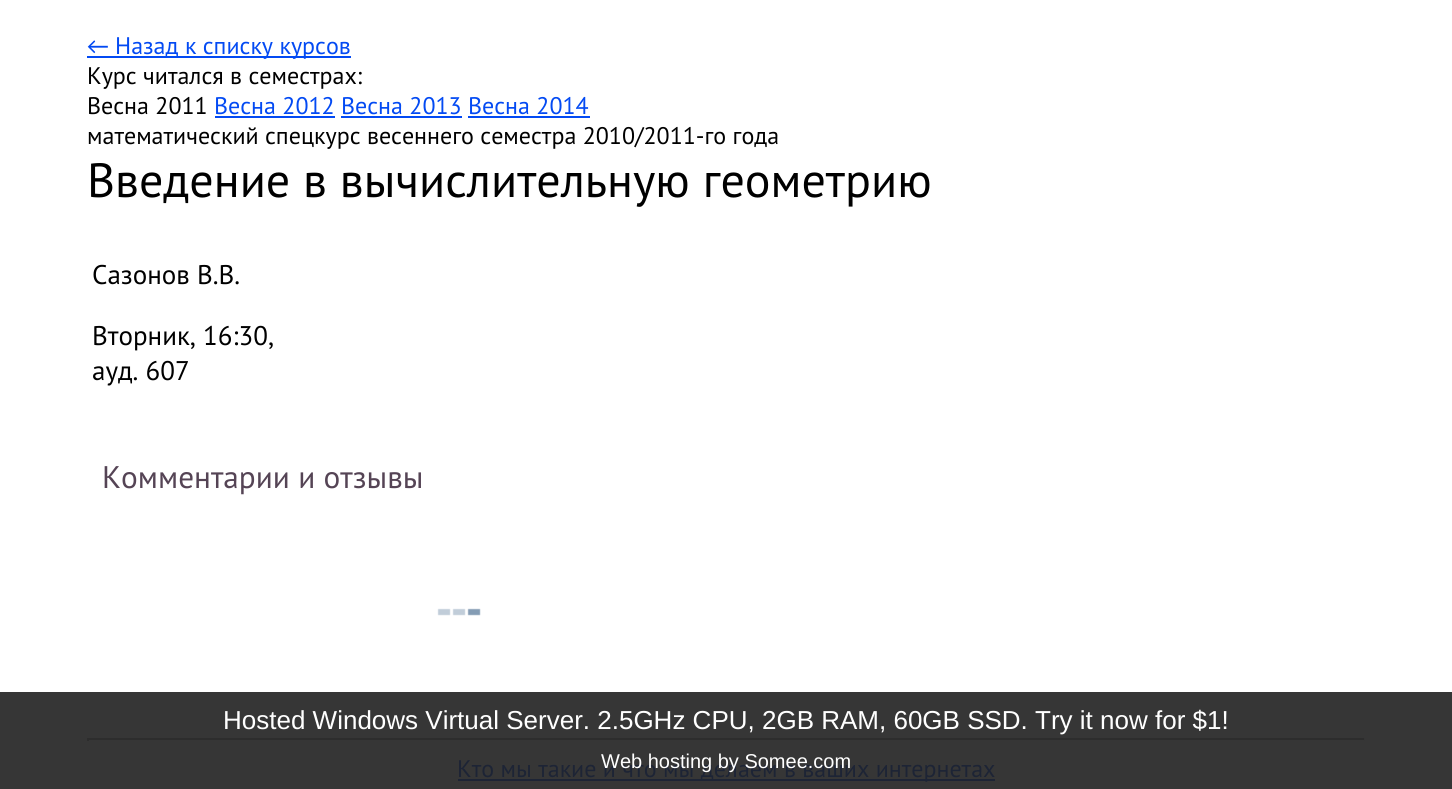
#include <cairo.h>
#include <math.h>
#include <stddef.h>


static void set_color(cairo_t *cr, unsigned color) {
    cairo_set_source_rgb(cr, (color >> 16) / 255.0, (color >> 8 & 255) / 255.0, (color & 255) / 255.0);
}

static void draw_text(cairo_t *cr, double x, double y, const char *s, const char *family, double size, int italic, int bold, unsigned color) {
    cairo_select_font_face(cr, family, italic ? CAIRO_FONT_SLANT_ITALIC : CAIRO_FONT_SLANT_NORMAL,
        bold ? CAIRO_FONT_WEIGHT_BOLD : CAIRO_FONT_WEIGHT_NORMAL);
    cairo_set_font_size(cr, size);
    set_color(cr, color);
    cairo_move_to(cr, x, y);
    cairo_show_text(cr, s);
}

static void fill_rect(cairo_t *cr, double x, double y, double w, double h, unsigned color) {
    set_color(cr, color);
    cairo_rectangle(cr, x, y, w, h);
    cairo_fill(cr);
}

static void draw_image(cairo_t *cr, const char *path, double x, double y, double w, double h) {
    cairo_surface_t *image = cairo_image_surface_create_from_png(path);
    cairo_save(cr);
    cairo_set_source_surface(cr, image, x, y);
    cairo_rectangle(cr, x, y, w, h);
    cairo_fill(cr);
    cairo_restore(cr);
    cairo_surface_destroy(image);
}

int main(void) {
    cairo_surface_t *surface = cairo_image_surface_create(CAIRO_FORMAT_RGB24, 1452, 789);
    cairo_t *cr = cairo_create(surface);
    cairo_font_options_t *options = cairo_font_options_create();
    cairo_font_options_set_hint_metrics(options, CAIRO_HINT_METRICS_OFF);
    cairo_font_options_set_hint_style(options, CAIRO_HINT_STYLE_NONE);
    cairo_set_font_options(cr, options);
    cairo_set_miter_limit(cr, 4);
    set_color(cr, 0xFFFFFF);
    cairo_paint(cr);
    fill_rect(cr, 0, 692, 1452, 97, 0x363636);
    draw_text(cr, 87, 54, "←", "Carlito", 24, 0, 0, 0x034AF3);
    fill_rect(cr, 87, 56, 264, 2, 0x034AF3);
    draw_text(cr, 115, 54, "Назад к списку курсов", "PT Sans", 24, 0, 0, 0x034AF3);
    draw_text(cr, 87, 84, "Курс читался в семестрах:", "PT Sans", 24, 0, 0, 0x000000);
    draw_text(cr, 87, 114, "Весна 2011", "PT Sans", 24, 0, 0, 0x000000);
    draw_text(cr, 214, 114, "Весна 2012 Весна 2013 Весна 2014", "PT Sans", 24, 0, 0, 0x034AF3);
    fill_rect(cr, 215, 116, 120, 2, 0x034AF3);
    fill_rect(cr, 341, 116, 121, 2, 0x034AF3);
    fill_rect(cr, 468, 116, 122, 2, 0x034AF3);
    draw_text(cr, 87, 144, "математический спецкурс весеннего семестра 2010/2011-го года", "PT Sans", 24, 0, 0, 0x000000);
    draw_text(cr, 87, 197, "Введение в вычислительную геометрию", "PT Sans", 48, 0, 0, 0x000000);
    draw_text(cr, 92, 284, "Сазонов В.В.", "PT Sans", 27, 0, 0, 0x000000);
    draw_text(cr, 92, 345, "Вторник, 16:30,", "PT Sans", 27, 0, 0, 0x000000);
    draw_text(cr, 92, 380, "ауд. 607", "PT Sans", 27, 0, 0, 0x000000);
    draw_text(cr, 102, 488, "Комментарии и отзывы", "PT Sans", 31.25, 0, 0, 0x554455);
    draw_image(cr, "assets/img1.png", 437, 608, 44, 8);
    fill_rect(cr, 87, 738, 1278, 2, 0x2D2D2D);
    fill_rect(cr, 1364, 738, 1, 3, 0x353535);
    fill_rect(cr, 87, 738, 2, 3, 0x2D2D2D);
    fill_rect(cr, 458, 779, 537, 2, 0x1D2435);
    draw_text(cr, 457, 777, "Кто мы такие и что мы делаем в ваших интернетах", "PT Sans", 24, 0, 0, 0x1D2435);
    draw_text(cr, 223, 729, "Hosted Windows Virtual Server. 2.5GHz CPU, 2GB RAM, 60GB SSD. Try it now for $1!", "Liberation Sans", 26, 0, 0, 0xFFFFFF);
    draw_text(cr, 601, 768, "Web hosting by Somee.com", "Liberation Sans", 20, 0, 0, 0xFFFFFF);
    cairo_surface_write_to_png(surface, "output.png");
    cairo_font_options_destroy(options);
    cairo_destroy(cr);
    cairo_surface_destroy(surface);
    return 0;
}
